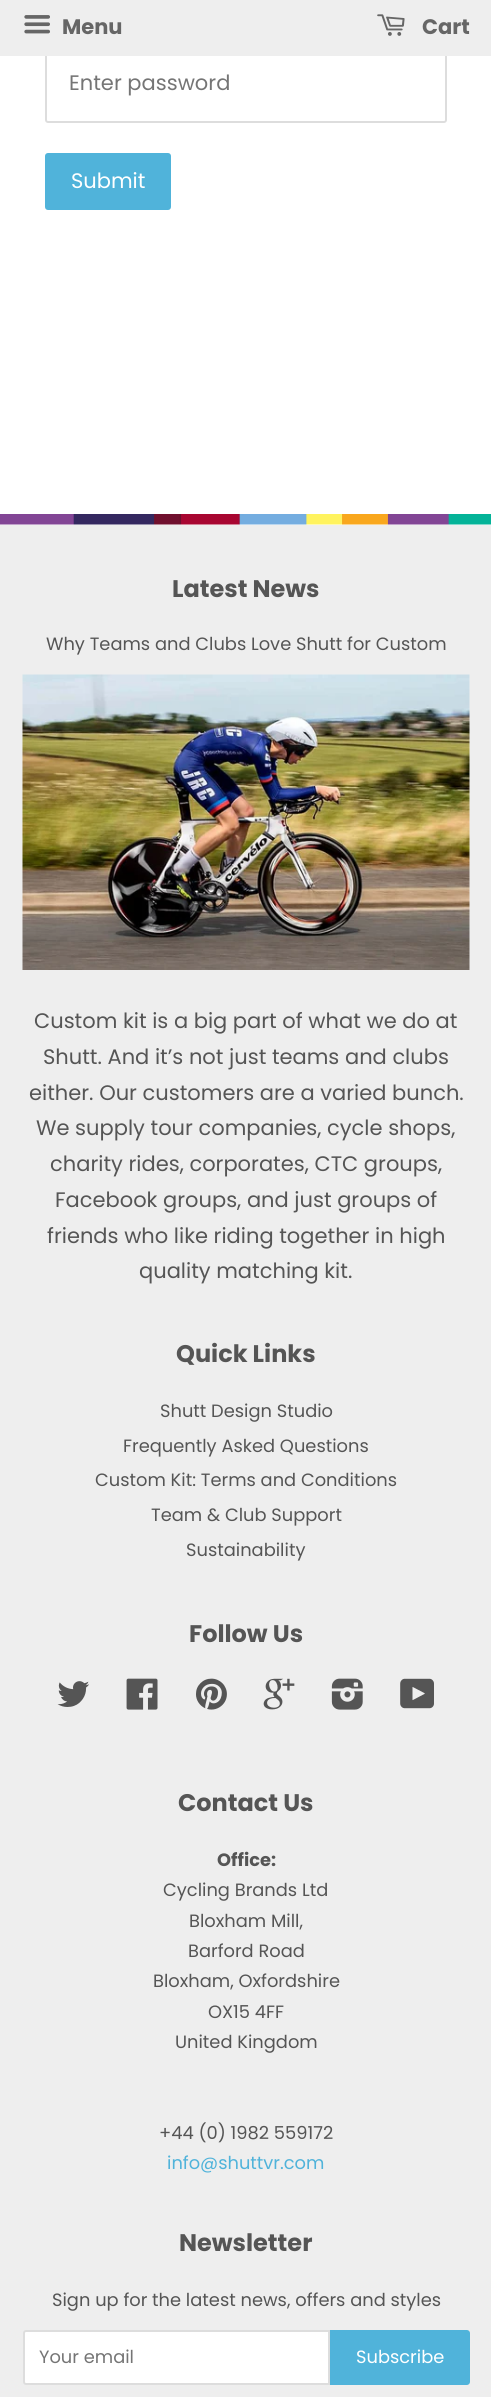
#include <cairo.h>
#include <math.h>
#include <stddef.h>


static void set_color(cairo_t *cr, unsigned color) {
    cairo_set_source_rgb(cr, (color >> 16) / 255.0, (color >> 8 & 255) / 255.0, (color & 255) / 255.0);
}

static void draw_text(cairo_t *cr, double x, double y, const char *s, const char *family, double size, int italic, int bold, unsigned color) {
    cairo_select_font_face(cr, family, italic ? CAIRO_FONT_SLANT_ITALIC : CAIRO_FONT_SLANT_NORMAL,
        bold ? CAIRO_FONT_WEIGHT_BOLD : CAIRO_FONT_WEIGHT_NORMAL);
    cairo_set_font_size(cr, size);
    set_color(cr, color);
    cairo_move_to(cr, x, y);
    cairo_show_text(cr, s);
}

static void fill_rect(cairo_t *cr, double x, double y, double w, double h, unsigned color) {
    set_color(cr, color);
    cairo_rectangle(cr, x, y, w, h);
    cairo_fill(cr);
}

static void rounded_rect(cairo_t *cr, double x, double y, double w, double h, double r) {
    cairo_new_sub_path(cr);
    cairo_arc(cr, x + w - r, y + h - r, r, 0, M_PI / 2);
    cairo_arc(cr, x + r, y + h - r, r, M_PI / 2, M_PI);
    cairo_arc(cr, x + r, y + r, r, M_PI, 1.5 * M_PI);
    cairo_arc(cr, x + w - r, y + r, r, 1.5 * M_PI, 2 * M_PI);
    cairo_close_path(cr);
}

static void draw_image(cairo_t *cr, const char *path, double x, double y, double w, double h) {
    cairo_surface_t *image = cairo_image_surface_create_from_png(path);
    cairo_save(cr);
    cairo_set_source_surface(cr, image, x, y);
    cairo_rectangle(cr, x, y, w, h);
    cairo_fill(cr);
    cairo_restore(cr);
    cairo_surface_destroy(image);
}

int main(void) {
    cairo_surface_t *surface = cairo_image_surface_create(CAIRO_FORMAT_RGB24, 491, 2397);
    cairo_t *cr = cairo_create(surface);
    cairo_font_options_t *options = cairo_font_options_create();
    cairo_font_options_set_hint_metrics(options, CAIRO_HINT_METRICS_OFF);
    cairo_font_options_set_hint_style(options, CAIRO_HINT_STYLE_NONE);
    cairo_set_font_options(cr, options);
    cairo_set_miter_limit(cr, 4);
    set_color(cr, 0xFFFFFF);
    cairo_paint(cr);
    rounded_rect(cr, 46, 46, 400, 76, 2);
    set_color(cr, 0xDDDDDD);
    cairo_stroke(cr);
    fill_rect(cr, 0, 0, 491, 56, 0xEEEEEE);
    draw_image(cr, "assets/img1.png", 24, 15, 26, 19);
    draw_text(cr, 62, 34, "Menu", "Poppins", 21, 0, 1, 0x666666);
    draw_image(cr, "assets/img2.png", 377, 14, 28, 22);
    draw_text(cr, 422, 34, "Cart", "Poppins", 21, 0, 1, 0x666666);
    draw_text(cr, 69, 90, "Enter password", "Poppins", 21, 0, 0, 0x757575);
    set_color(cr, 0x50B3DA);
    rounded_rect(cr, 45, 153, 126, 57, 3);
    cairo_fill(cr);
    draw_text(cr, 71, 188, "Submit", "Poppins", 21, 0, 0, 0xFFFFFF);
    fill_rect(cr, 0, 525, 491, 1872, 0xEEEEEE);
    draw_image(cr, "assets/img3.png", 0, 514, 491, 11);
    draw_text(cr, 172, 597, "Latest News", "Poppins", 24, 0, 1, 0x555555);
    draw_text(cr, 46, 650, "Why Teams and Clubs Love Shutt for Custom", "Poppins", 17.85, 0, 0, 0x555555);
    draw_image(cr, "assets/img4.png", 22, 674, 448, 296);
    draw_text(cr, 34, 1028, "Custom kit is a big part of what we do at", "Poppins", 21, 0, 0, 0x555555);
    draw_text(cr, 43, 1064, "Shutt. And it’s not just teams and clubs", "Poppins", 21, 0, 0, 0x555555);
    draw_text(cr, 29, 1100, "either. Our customers are a varied bunch.", "Poppins", 21, 0, 0, 0x555555);
    draw_text(cr, 36, 1135, "We supply tour companies, cycle shops,", "Poppins", 21, 0, 0, 0x555555);
    draw_text(cr, 50, 1171, "charity rides, corporates, CTC groups,", "Poppins", 21, 0, 0, 0x555555);
    draw_text(cr, 55, 1207, "Facebook groups, and just groups of", "Poppins", 21, 0, 0, 0x555555);
    draw_text(cr, 47, 1243, "friends who like riding together in high", "Poppins", 21, 0, 0, 0x555555);
    draw_text(cr, 139, 1278, "quality matching kit.", "Poppins", 21, 0, 0, 0x555555);
    draw_text(cr, 176, 1362, "Quick Links", "Poppins", 24, 0, 1, 0x555555);
    draw_text(cr, 160, 1417, "Shutt Design Studio", "Poppins", 17.85, 0, 0, 0x555555);
    draw_text(cr, 123, 1452, "Frequently Asked Questions", "Poppins", 17.85, 0, 0, 0x555555);
    draw_text(cr, 95, 1486, "Custom Kit: Terms and Conditions", "Poppins", 17.85, 0, 0, 0x555555);
    draw_text(cr, 151, 1521, "Team & Club Support", "Poppins", 17.85, 0, 0, 0x555555);
    draw_text(cr, 186, 1556, "Sustainability", "Poppins", 17.85, 0, 0, 0x555555);
    draw_text(cr, 189, 1642, "Follow Us", "Poppins", 24, 0, 1, 0x555555);
    draw_image(cr, "assets/img5.png", 57, 1681, 32, 26);
    draw_image(cr, "assets/img6.png", 126, 1678, 32, 32);
    draw_image(cr, "assets/img7.png", 196, 1678, 31, 32);
    draw_image(cr, "assets/img8.png", 263, 1678, 32, 32);
    draw_image(cr, "assets/img9.png", 331, 1678, 32, 32);
    draw_image(cr, "assets/img10.png", 400, 1678, 34, 31);
    draw_text(cr, 178, 1811, "Contact Us", "Poppins", 24, 0, 1, 0x555555);
    draw_text(cr, 217, 1866, "Office:", "Poppins", 17.85, 0, 1, 0x555555);
    draw_text(cr, 163, 1896, "Cycling Brands Ltd", "Poppins", 17.85, 0, 0, 0x555555);
    draw_text(cr, 189, 1927, "Bloxham Mill,", "Poppins", 17.85, 0, 0, 0x555555);
    draw_text(cr, 188, 1957, "Barford Road", "Poppins", 17.85, 0, 0, 0x555555);
    draw_text(cr, 153, 1987, "Bloxham, Oxfordshire", "Poppins", 17.85, 0, 0, 0x555555);
    draw_text(cr, 208, 2018, "OX15 4FF", "Poppins", 17.85, 0, 0, 0x555555);
    draw_text(cr, 175, 2048, "United Kingdom", "Poppins", 17.85, 0, 0, 0x555555);
    draw_text(cr, 159, 2139, "+44 (0) 1982 559172", "Poppins", 17.85, 0, 0, 0x555555);
    draw_text(cr, 167, 2169, "info@shuttvr.com", "Poppins", 17.85, 0, 0, 0x50B3DA);
    draw_text(cr, 179, 2251, "Newsletter", "Poppins", 24, 0, 1, 0x555555);
    draw_text(cr, 52, 2306, "Sign up for the latest news, offers and styles", "Poppins", 17.85, 0, 0, 0x555555);
    set_color(cr, 0xFFFFFF);
    cairo_new_path(cr);
    cairo_move_to(cr, 26, 2331);
    cairo_line_to(cr, 329, 2331);
    cairo_line_to(cr, 329, 2384);
    cairo_line_to(cr, 26, 2384);
    cairo_curve_to(cr, 25, 2384, 24, 2383, 24, 2382);
    cairo_line_to(cr, 24, 2333);
    cairo_curve_to(cr, 24, 2332, 25, 2331, 26, 2331);
    cairo_close_path(cr);
    cairo_fill_preserve(cr);
    set_color(cr, 0xDDDDDD);
    cairo_stroke(cr);
    draw_text(cr, 39, 2363, "Your email", "Poppins", 17.85, 0, 0, 0x757575);
    set_color(cr, 0x50B3DA);
    cairo_new_path(cr);
    cairo_move_to(cr, 330, 2330);
    cairo_line_to(cr, 467, 2330);
    cairo_curve_to(cr, 468.5, 2330, 470, 2331.5, 470, 2333);
    cairo_line_to(cr, 470, 2382);
    cairo_curve_to(cr, 470, 2383.5, 468.5, 2385, 467, 2385);
    cairo_line_to(cr, 330, 2385);
    cairo_close_path(cr);
    cairo_fill(cr);
    draw_text(cr, 356, 2363, "Subscribe", "Poppins", 17.85, 0, 0, 0xFFFFFF);
    cairo_surface_write_to_png(surface, "output.png");
    cairo_font_options_destroy(options);
    cairo_destroy(cr);
    cairo_surface_destroy(surface);
    return 0;
}
